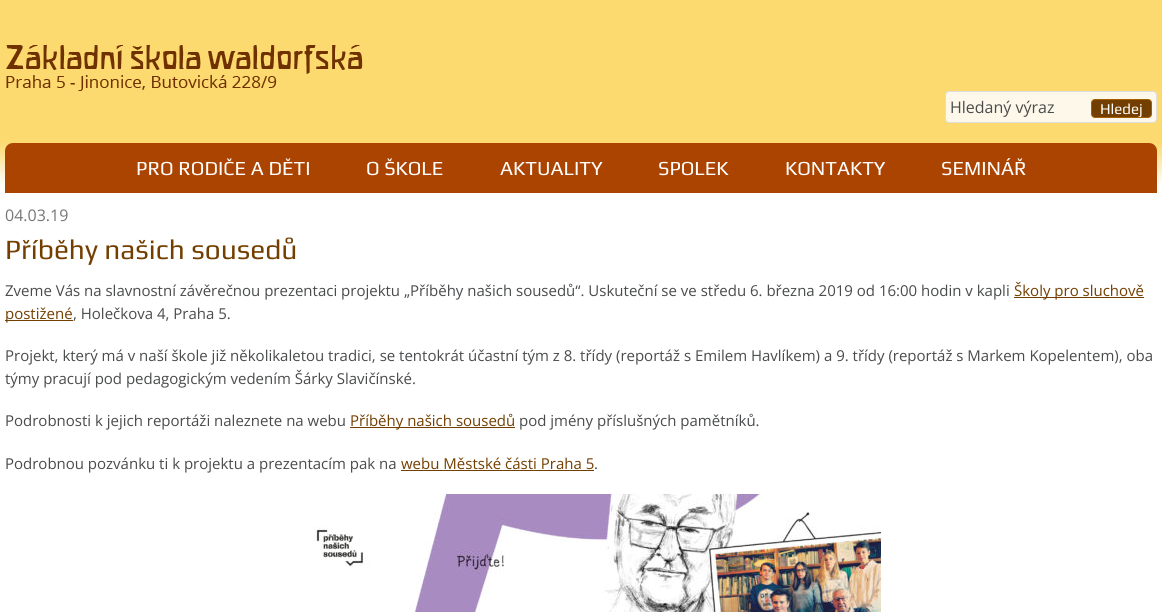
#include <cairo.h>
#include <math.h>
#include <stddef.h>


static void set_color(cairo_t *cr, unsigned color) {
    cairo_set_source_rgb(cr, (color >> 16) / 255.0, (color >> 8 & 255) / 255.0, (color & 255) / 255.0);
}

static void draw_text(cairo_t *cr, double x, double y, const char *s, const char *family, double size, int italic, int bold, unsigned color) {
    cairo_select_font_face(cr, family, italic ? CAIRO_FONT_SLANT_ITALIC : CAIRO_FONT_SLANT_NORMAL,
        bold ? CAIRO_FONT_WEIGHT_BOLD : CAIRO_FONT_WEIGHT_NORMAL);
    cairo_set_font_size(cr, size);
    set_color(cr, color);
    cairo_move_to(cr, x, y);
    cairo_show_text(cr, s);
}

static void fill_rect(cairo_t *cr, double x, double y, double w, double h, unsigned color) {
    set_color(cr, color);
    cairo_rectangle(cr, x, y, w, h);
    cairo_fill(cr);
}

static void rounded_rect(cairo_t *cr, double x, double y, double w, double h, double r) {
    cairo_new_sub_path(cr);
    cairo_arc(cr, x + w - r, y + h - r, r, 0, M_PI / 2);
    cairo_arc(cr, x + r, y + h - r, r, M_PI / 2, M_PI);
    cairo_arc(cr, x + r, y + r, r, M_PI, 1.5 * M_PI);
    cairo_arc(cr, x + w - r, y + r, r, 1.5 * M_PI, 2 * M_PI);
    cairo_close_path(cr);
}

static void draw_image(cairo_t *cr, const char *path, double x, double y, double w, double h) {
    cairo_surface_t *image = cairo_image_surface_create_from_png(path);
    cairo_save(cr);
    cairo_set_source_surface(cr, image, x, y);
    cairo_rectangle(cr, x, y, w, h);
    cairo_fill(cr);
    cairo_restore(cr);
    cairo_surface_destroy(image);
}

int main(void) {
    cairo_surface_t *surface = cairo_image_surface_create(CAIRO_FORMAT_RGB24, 1162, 612);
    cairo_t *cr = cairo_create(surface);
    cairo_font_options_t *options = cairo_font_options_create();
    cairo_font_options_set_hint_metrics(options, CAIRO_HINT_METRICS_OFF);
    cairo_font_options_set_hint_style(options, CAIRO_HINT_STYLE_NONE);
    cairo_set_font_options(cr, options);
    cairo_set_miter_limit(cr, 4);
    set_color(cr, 0xFFFFFF);
    cairo_paint(cr);
    fill_rect(cr, 0, 0, 1162, 143, 0xFDDA6F);
    draw_image(cr, "assets/img1.png", 6, 45, 357, 46);
    set_color(cr, 0xFDF8E9);
    rounded_rect(cr, 945.5, 91.5, 211, 31, 3.5);
    cairo_fill_preserve(cr);
    set_color(cr, 0xDDDDDD);
    cairo_set_line_width(cr, 1);
    cairo_stroke(cr);
    draw_text(cr, 950, 113, "Hledaný výraz", "Open Sans", 16, 0, 0, 0x4A4B4C);
    set_color(cr, 0x733F01);
    rounded_rect(cr, 1091.5, 99.5, 60, 18, 3.5);
    cairo_fill_preserve(cr);
    set_color(cr, 0xA65F00);
    cairo_stroke(cr);
    cairo_save(cr);
    rounded_rect(cr, 1092, 100, 59, 17, 3);
    cairo_clip(cr);
    draw_text(cr, 1100, 114, "Hledej", "Play", 15, 0, 0, 0xFFFFFF);
    cairo_restore(cr);
    draw_image(cr, "assets/img2.png", 0, 143, 1162, 42);
    set_color(cr, 0xAC4401);
    cairo_new_path(cr);
    cairo_move_to(cr, 13, 143);
    cairo_line_to(cr, 1149, 143);
    cairo_curve_to(cr, 1153.5, 143, 1157, 146.5, 1157, 151);
    cairo_line_to(cr, 1157, 193);
    cairo_line_to(cr, 5, 193);
    cairo_line_to(cr, 5, 151);
    cairo_curve_to(cr, 5, 146.5, 8.5, 143, 13, 143);
    cairo_close_path(cr);
    cairo_fill(cr);
    draw_text(cr, 136, 175, "PRO RODIČE A DĚTI", "Play", 20, 0, 0, 0xFFFFFF);
    draw_text(cr, 366, 175, "O ŠKOLE", "Play", 20, 0, 0, 0xFFFFFF);
    draw_text(cr, 500, 175, "AKTUALITY", "Play", 20, 0, 0, 0xFFFFFF);
    draw_text(cr, 658, 175, "SPOLEK", "Play", 20, 0, 0, 0xFFFFFF);
    draw_text(cr, 785, 175, "KONTAKTY", "Play", 20, 0, 0, 0xFFFFFF);
    draw_text(cr, 941, 175, "SEMINÁŘ", "Play", 20, 0, 0, 0xFFFFFF);
    draw_text(cr, 5, 221, "04.03.19", "Open Sans", 16, 0, 0, 0x757679);
    draw_text(cr, 5, 259, "Příběhy našich sousedů", "Play", 28, 0, 0, 0x733F01);
    draw_text(cr, 5, 296, "Zveme Vás na slavnostní závěrečnou prezentaci projektu „Příběhy našich sousedů“. Uskuteční se ve středu 6. března 2019 od 16:00 hodin v kapli", "Open Sans", 15, 0, 0, 0x4A4B4C);
    fill_rect(cr, 1014, 297, 130, 1, 0x733F01);
    draw_text(cr, 1014, 296, "Školy pro sluchově", "Open Sans", 15, 0, 0, 0x733F01);
    fill_rect(cr, 5, 320, 68, 1, 0x733F01);
    draw_text(cr, 5, 319, "postižené", "Open Sans", 15, 0, 0, 0x733F01);
    draw_text(cr, 73, 319, ", Holečkova 4, Praha 5.", "Open Sans", 15, 0, 0, 0x4A4B4C);
    draw_text(cr, 5, 361, "Projekt, který má v naší škole již několikaletou tradici, se tentokrát účastní tým z 8. třídy (reportáž s Emilem Havlíkem) a 9. třídy (reportáž s Markem Kopelentem), oba", "Open Sans", 15, 0, 0, 0x4A4B4C);
    draw_text(cr, 5, 384, "týmy pracují pod pedagogickým vedením Šárky Slavičínské.", "Open Sans", 15, 0, 0, 0x4A4B4C);
    draw_text(cr, 5, 426, "Podrobnosti k jejich reportáži naleznete na webu", "Open Sans", 15, 0, 0, 0x4A4B4C);
    fill_rect(cr, 350, 427, 165, 1, 0x733F01);
    draw_text(cr, 350, 426, "Příběhy našich sousedů", "Open Sans", 15, 0, 0, 0x733F01);
    draw_text(cr, 519, 426, "pod jmény příslušných pamětníků.", "Open Sans", 15, 0, 0, 0x4A4B4C);
    draw_text(cr, 5, 469, "Podrobnou pozvánku ti k projektu a prezentacím pak na", "Open Sans", 15, 0, 0, 0x4A4B4C);
    draw_text(cr, 401, 469, "webu Městské části Praha 5", "Open Sans", 15, 0, 0, 0x733F01);
    fill_rect(cr, 401, 470, 193, 1, 0x733F01);
    draw_text(cr, 594, 469, ".", "Open Sans", 15, 0, 0, 0x4A4B4C);
    draw_image(cr, "assets/img3.png", 313, 494, 568, 118);
    cairo_surface_write_to_png(surface, "output.png");
    cairo_font_options_destroy(options);
    cairo_destroy(cr);
    cairo_surface_destroy(surface);
    return 0;
}
